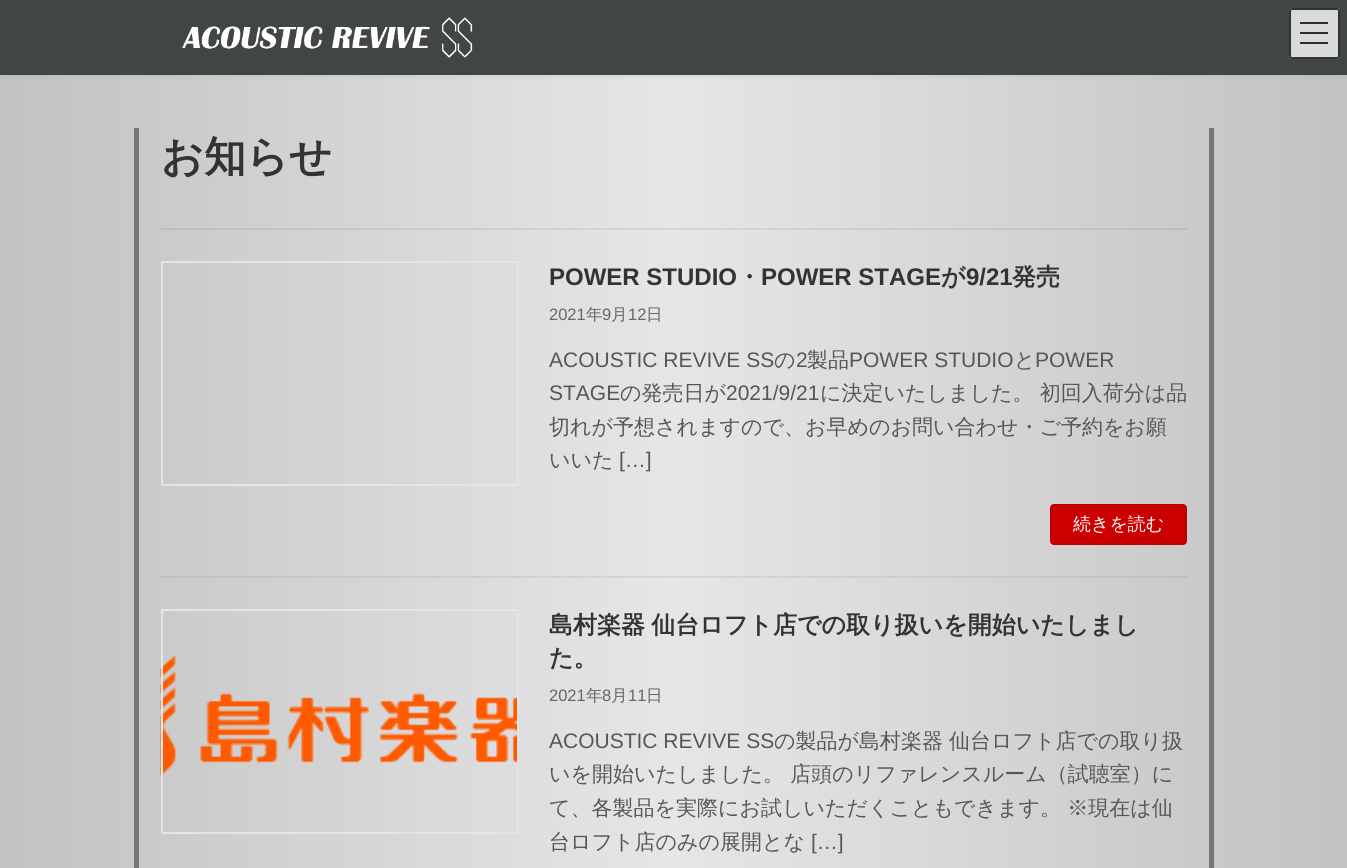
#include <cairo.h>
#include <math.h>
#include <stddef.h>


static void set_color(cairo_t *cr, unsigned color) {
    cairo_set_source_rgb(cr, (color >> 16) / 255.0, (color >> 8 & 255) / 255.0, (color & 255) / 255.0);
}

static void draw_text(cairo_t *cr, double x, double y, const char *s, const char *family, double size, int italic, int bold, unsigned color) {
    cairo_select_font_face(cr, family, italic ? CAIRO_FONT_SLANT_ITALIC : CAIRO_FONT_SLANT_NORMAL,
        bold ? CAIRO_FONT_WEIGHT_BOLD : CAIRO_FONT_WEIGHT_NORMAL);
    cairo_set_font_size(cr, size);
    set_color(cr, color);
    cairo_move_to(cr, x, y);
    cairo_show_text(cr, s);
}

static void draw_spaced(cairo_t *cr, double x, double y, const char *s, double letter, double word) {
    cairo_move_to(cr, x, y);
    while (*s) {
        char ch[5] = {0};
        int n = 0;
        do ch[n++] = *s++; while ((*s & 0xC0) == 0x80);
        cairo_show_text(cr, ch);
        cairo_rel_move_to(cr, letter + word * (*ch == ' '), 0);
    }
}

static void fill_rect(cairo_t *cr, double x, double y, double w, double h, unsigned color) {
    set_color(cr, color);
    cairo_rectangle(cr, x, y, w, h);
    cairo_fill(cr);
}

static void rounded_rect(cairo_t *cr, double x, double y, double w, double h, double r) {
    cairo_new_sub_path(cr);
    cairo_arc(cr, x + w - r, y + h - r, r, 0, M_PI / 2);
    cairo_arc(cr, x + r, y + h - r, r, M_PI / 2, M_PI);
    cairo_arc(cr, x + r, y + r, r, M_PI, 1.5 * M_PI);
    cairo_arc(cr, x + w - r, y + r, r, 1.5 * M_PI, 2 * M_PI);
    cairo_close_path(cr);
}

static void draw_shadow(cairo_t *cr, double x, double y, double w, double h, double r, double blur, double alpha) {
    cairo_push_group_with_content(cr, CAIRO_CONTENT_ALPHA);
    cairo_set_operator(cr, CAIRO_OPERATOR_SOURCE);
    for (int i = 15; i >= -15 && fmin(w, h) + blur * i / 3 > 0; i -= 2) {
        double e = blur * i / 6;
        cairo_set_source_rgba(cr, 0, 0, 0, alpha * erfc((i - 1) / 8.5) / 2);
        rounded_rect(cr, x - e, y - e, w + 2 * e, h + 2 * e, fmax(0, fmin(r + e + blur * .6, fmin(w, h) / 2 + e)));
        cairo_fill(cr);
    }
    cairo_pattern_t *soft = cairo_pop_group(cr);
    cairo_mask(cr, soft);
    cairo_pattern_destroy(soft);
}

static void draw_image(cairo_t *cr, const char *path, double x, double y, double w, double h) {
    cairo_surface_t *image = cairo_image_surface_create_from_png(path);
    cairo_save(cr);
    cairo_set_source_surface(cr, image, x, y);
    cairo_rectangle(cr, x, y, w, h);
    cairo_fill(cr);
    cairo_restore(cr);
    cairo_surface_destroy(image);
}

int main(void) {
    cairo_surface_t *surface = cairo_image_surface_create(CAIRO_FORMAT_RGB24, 1347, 868);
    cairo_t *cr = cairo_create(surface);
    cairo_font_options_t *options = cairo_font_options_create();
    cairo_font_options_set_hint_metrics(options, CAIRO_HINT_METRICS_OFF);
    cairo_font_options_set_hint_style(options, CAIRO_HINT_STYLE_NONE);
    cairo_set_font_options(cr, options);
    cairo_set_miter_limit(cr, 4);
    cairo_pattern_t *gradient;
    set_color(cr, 0xFFFFFF);
    cairo_paint(cr);
    gradient = cairo_pattern_create_linear(0, 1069, 1347, 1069);
    cairo_pattern_add_color_stop_rgba(gradient, 0, 0.765, 0.761, 0.761, 1);
    cairo_pattern_add_color_stop_rgba(gradient, 0.5, 0.902, 0.902, 0.91, 1);
    cairo_pattern_add_color_stop_rgba(gradient, 1, 0.765, 0.761, 0.761, 1);
    cairo_set_source(cr, gradient);
    cairo_pattern_destroy(gradient);
    cairo_rectangle(cr, 0, 75, 1347, 793);
    cairo_fill(cr);
    set_color(cr, 0x000000);
    draw_shadow(cr, 0, 2, 1347, 75, 0, 2, 0.05);
    fill_rect(cr, 0, 0, 1347, 75, 0x414544);
    draw_image(cr, "assets/img1.png", 182, 17, 291, 41);
    set_color(cr, 0xD9DADA);
    rounded_rect(cr, 1289, 8, 51, 51, 3);
    cairo_fill(cr);
    fill_rect(cr, 1300, 22, 28, 2, 0x2B2C2C);
    fill_rect(cr, 1300, 32, 28, 2, 0x2B2C2C);
    fill_rect(cr, 1300, 42, 28, 2, 0x2B2C2C);
    rounded_rect(cr, 1290, 9, 49, 49, 2);
    set_color(cr, 0x333333);
    cairo_stroke(cr);
    gradient = cairo_pattern_create_linear(0, 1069, 1347, 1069);
    cairo_pattern_add_color_stop_rgba(gradient, 0, 0.718, 0.714, 0.714, 1);
    cairo_pattern_add_color_stop_rgba(gradient, 0.5, 0.847, 0.847, 0.855, 1);
    cairo_pattern_add_color_stop_rgba(gradient, 1, 0.718, 0.714, 0.714, 1);
    cairo_set_source(cr, gradient);
    cairo_pattern_destroy(gradient);
    cairo_rectangle(cr, 161, 576, 1026, 2);
    cairo_fill(cr);
    cairo_rectangle(cr, 161, 228, 1026, 2);
    cairo_fill(cr);
    fill_rect(cr, 1209, 128, 5, 740, 0x777777);
    fill_rect(cr, 134, 128, 5, 740, 0x777777);
    draw_text(cr, 161, 171, "お知らせ", "WenQuanYi Zen Hei", 42, 0, 1, 0x333333);
    cairo_rectangle(cr, 162, 262, 356, 223);
    set_color(cr, 0xE5E5E5);
    cairo_stroke(cr);
    draw_text(cr, 549, 285, "POWER STUDIO", "Liberation Sans", 24, 0, 1, 0x333333);
    draw_text(cr, 737, 285, "・", "WenQuanYi Zen Hei", 24, 0, 1, 0x333333);
    draw_text(cr, 761, 285, "POWER STAGE", "Liberation Sans", 24, 0, 1, 0x333333);
    draw_text(cr, 941, 285, "が", "WenQuanYi Zen Hei", 24, 0, 1, 0x333333);
    draw_text(cr, 966, 285, "9/21", "Liberation Sans", 24, 0, 1, 0x333333);
    draw_text(cr, 1012, 285, "発売", "WenQuanYi Zen Hei", 24, 0, 1, 0x333333);
    draw_text(cr, 549, 320, "2021", "Liberation Sans", 16.5, 0, 0, 0x666666);
    draw_text(cr, 586, 320, "年", "WenQuanYi Zen Hei Medium", 16.5, 0, 0, 0x666666);
    draw_text(cr, 602, 320, "9", "Liberation Sans", 16.5, 0, 0, 0x666666);
    draw_text(cr, 611, 320, "月", "WenQuanYi Zen Hei Medium", 16.5, 0, 0, 0x666666);
    draw_text(cr, 628, 320, "12", "Liberation Sans", 16.5, 0, 0, 0x666666);
    draw_text(cr, 646, 320, "日", "WenQuanYi Zen Hei Medium", 16.5, 0, 0, 0x666666);
    draw_text(cr, 549, 367, "ACOUSTIC REVIVE SS", "Liberation Sans", 21, 0, 0, 0x565657);
    draw_text(cr, 774, 367, "の", "WenQuanYi Zen Hei Medium", 21, 0, 0, 0x565657);
    draw_text(cr, 796, 367, "2", "Liberation Sans", 21, 0, 0, 0x565657);
    draw_text(cr, 807, 367, "製品", "WenQuanYi Zen Hei Medium", 21, 0, 0, 0x565657);
    draw_text(cr, 849, 367, "POWER STUDIO", "Liberation Sans", 21, 0, 0, 0x565657);
    draw_text(cr, 1014, 367, "と", "WenQuanYi Zen Hei Medium", 21, 0, 0, 0x565657);
    draw_text(cr, 1035, 367, "POWER", "Liberation Sans", 21, 0, 0, 0x565657);
    draw_text(cr, 549, 400, "STAGE", "Liberation Sans", 21, 0, 0, 0x565657);
    draw_text(cr, 620, 400, "の発売日が", "WenQuanYi Zen Hei Medium", 21, 0, 0, 0x565657);
    draw_text(cr, 726, 400, "2021/9/21", "Liberation Sans", 21, 0, 0, 0x565657);
    draw_text(cr, 820, 400, "に決定いたしました。 初回入荷分は品", "WenQuanYi Zen Hei Medium", 21, 0, 0, 0x565657);
    draw_text(cr, 549, 434, "切れが予想されますので、お早めのお問い合わせ・ご予約をお願", "WenQuanYi Zen Hei Medium", 21, 0, 0, 0x565657);
    draw_text(cr, 549, 467, "いいた", "WenQuanYi Zen Hei Medium", 21, 0, 0, 0x565657);
    draw_text(cr, 619, 467, "[…]", "Liberation Sans", 21, 0, 0, 0x565657);
    set_color(cr, 0xCC0000);
    rounded_rect(cr, 1051, 505, 135, 39, 3);
    cairo_fill_preserve(cr);
    set_color(cr, 0xBB0000);
    cairo_stroke(cr);
    draw_text(cr, 1073, 530, "続きを読む", "WenQuanYi Zen Hei Medium", 18, 0, 0, 0xFFFFFF);
    draw_image(cr, "assets/img2.png", 160, 655, 357, 123);
    cairo_rectangle(cr, 162, 610, 356, 223);
    set_color(cr, 0xE5E5E5);
    cairo_stroke(cr);
    cairo_select_font_face(cr, "WenQuanYi Zen Hei", CAIRO_FONT_SLANT_NORMAL, CAIRO_FONT_WEIGHT_BOLD);
    cairo_set_font_size(cr, 24);
    set_color(cr, 0x333333);
    draw_spaced(cr, 549, 633, "島村楽器 仙台ロフト店での取り扱いを開始いたしまし", 0, -1);
    draw_text(cr, 549, 666, "た。", "WenQuanYi Zen Hei", 24, 0, 1, 0x333333);
    draw_text(cr, 549, 701, "2021", "Liberation Sans", 16.5, 0, 0, 0x666666);
    draw_text(cr, 586, 701, "年", "WenQuanYi Zen Hei Medium", 16.5, 0, 0, 0x666666);
    draw_text(cr, 602, 701, "8", "Liberation Sans", 16.5, 0, 0, 0x666666);
    draw_text(cr, 611, 701, "月", "WenQuanYi Zen Hei Medium", 16.5, 0, 0, 0x666666);
    draw_text(cr, 628, 701, "11", "Liberation Sans", 16.5, 0, 0, 0x666666);
    draw_text(cr, 646, 701, "日", "WenQuanYi Zen Hei Medium", 16.5, 0, 0, 0x666666);
    draw_text(cr, 549, 748, "ACOUSTIC REVIVE SS", "Liberation Sans", 21, 0, 0, 0x565657);
    draw_text(cr, 774, 748, "の製品が島村楽器", "WenQuanYi Zen Hei Medium", 21, 0, 0, 0x565657);
    draw_text(cr, 949, 748, "仙台ロフト店での取り扱", "WenQuanYi Zen Hei Medium", 21, 0, 0, 0x565657);
    draw_text(cr, 549, 781, "いを開始いたしました。 店頭のリファレンスルーム（試聴室）に", "WenQuanYi Zen Hei Medium", 21, 0, 0, 0x565657);
    draw_text(cr, 549, 815, "て、各製品を実際にお試しいただくこともできます。 ※現在は仙", "WenQuanYi Zen Hei Medium", 21, 0, 0, 0x565657);
    draw_text(cr, 549, 849, "台ロフト店のみの展開とな", "WenQuanYi Zen Hei Medium", 21, 0, 0, 0x565657);
    draw_text(cr, 811, 849, "[…]", "Liberation Sans", 21, 0, 0, 0x565657);
    cairo_surface_write_to_png(surface, "output.png");
    cairo_font_options_destroy(options);
    cairo_destroy(cr);
    cairo_surface_destroy(surface);
    return 0;
}
